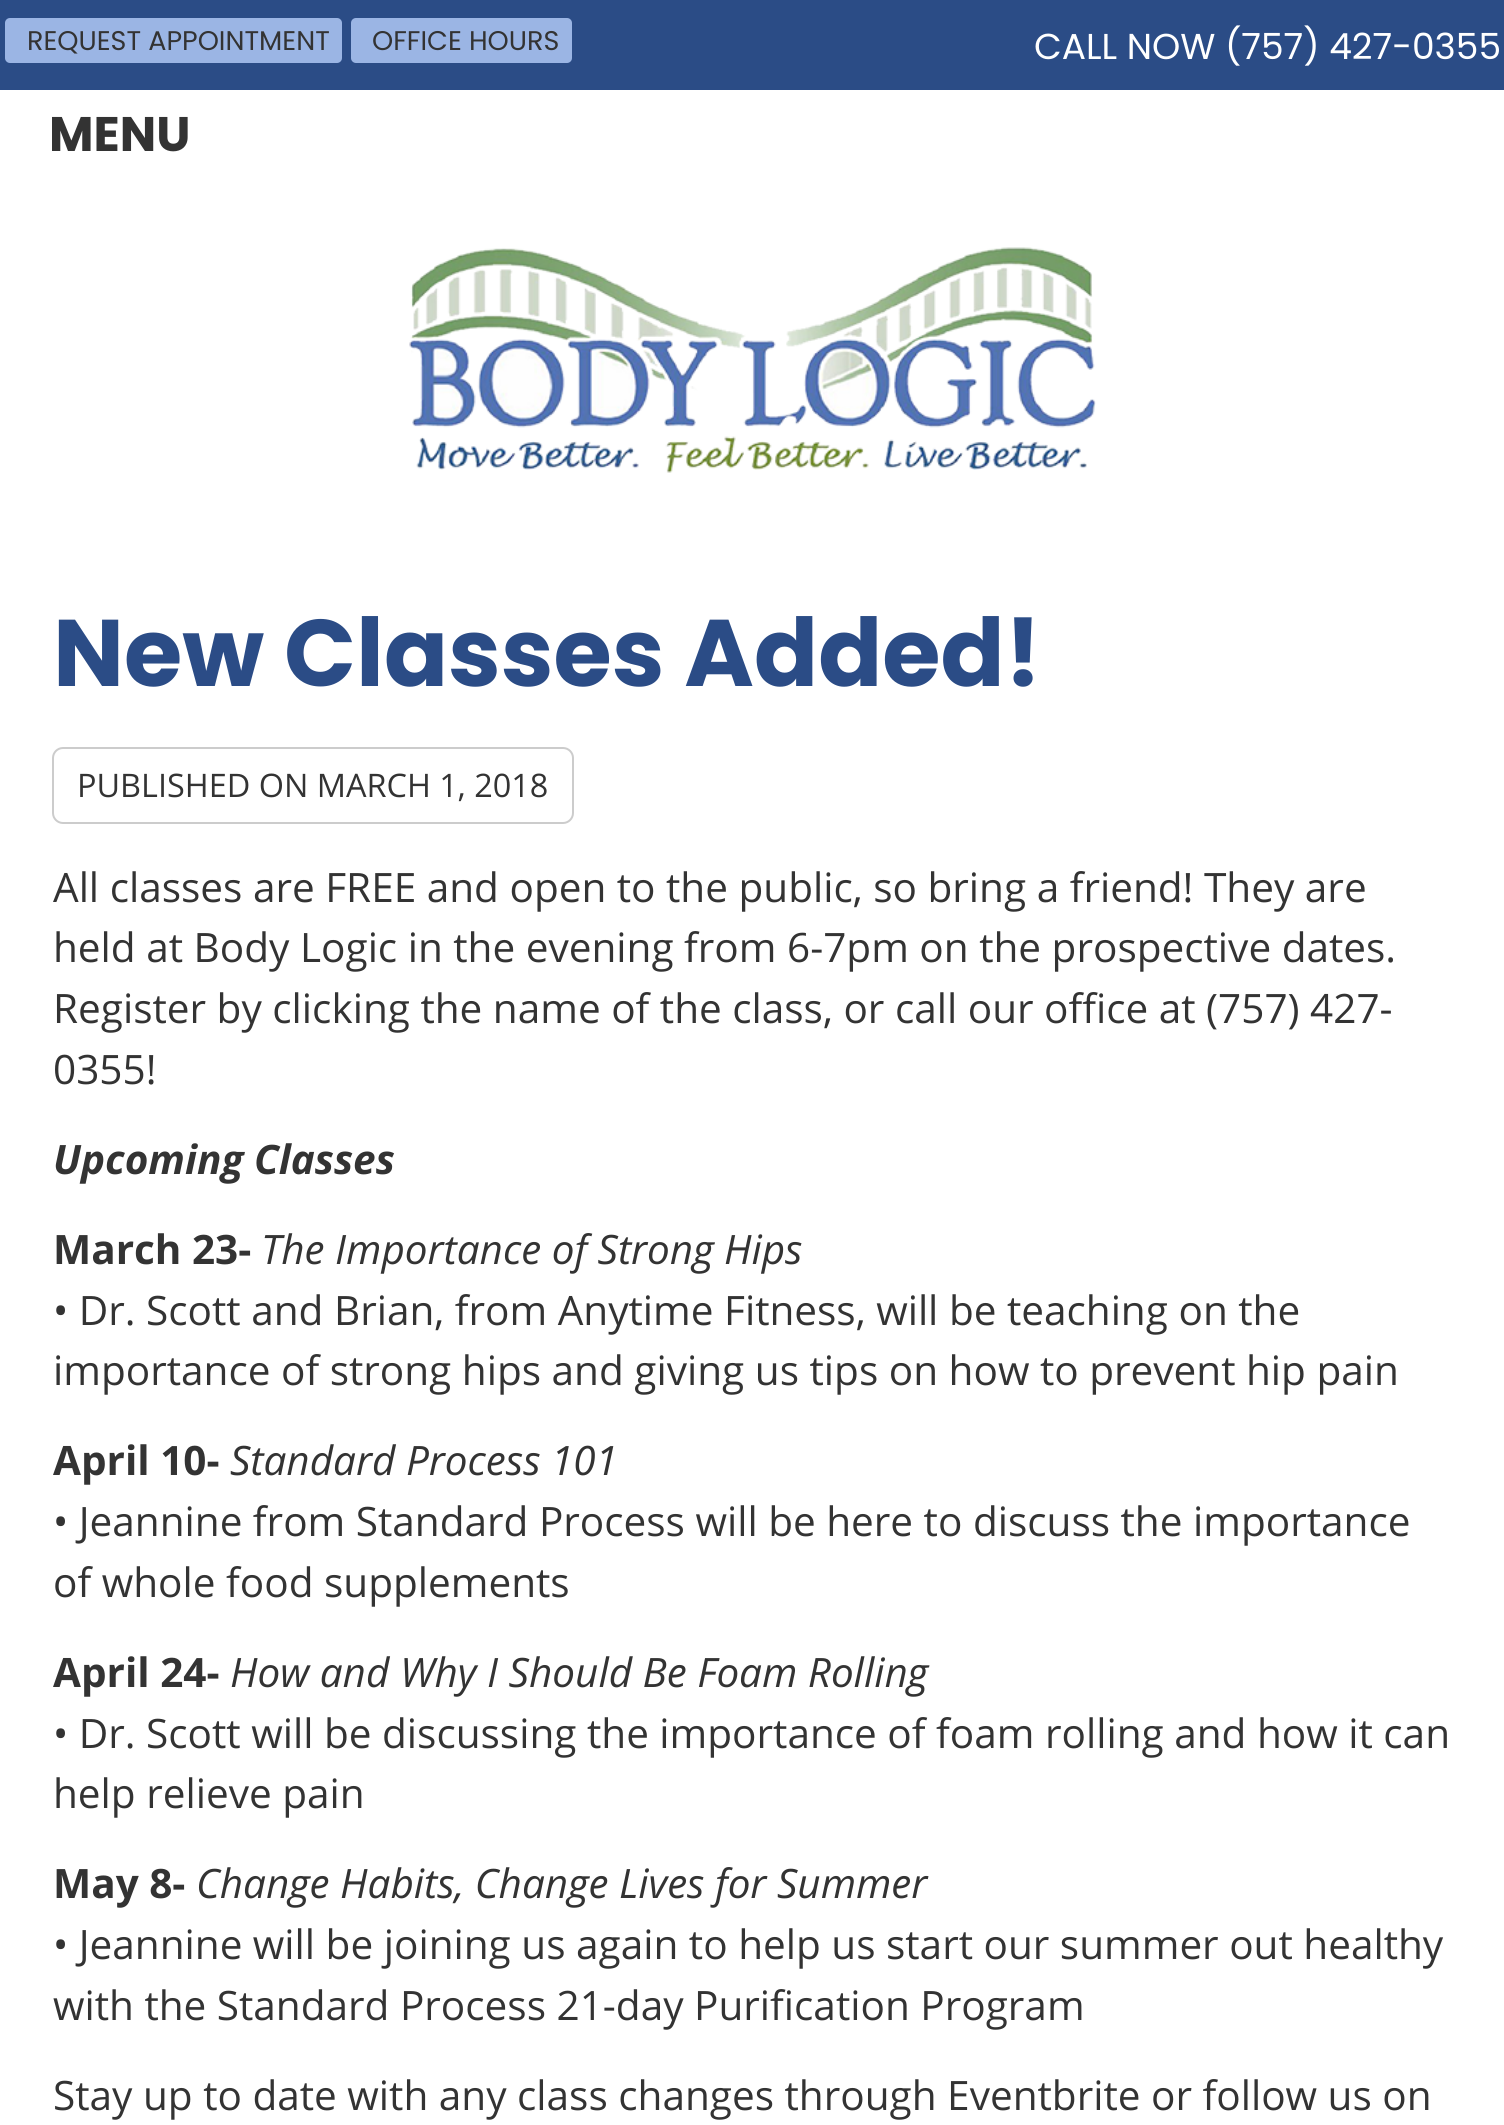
#include <cairo.h>
#include <math.h>
#include <stddef.h>


static void set_color(cairo_t *cr, unsigned color) {
    cairo_set_source_rgb(cr, (color >> 16) / 255.0, (color >> 8 & 255) / 255.0, (color & 255) / 255.0);
}

static void draw_text(cairo_t *cr, double x, double y, const char *s, const char *family, double size, int italic, int bold, unsigned color) {
    cairo_select_font_face(cr, family, italic ? CAIRO_FONT_SLANT_ITALIC : CAIRO_FONT_SLANT_NORMAL,
        bold ? CAIRO_FONT_WEIGHT_BOLD : CAIRO_FONT_WEIGHT_NORMAL);
    cairo_set_font_size(cr, size);
    set_color(cr, color);
    cairo_move_to(cr, x, y);
    cairo_show_text(cr, s);
}

static void fill_rect(cairo_t *cr, double x, double y, double w, double h, unsigned color) {
    set_color(cr, color);
    cairo_rectangle(cr, x, y, w, h);
    cairo_fill(cr);
}

static void rounded_rect(cairo_t *cr, double x, double y, double w, double h, double r) {
    cairo_new_sub_path(cr);
    cairo_arc(cr, x + w - r, y + h - r, r, 0, M_PI / 2);
    cairo_arc(cr, x + r, y + h - r, r, M_PI / 2, M_PI);
    cairo_arc(cr, x + r, y + r, r, M_PI, 1.5 * M_PI);
    cairo_arc(cr, x + w - r, y + r, r, 1.5 * M_PI, 2 * M_PI);
    cairo_close_path(cr);
}

static void draw_image(cairo_t *cr, const char *path, double x, double y, double w, double h) {
    cairo_surface_t *image = cairo_image_surface_create_from_png(path);
    cairo_save(cr);
    cairo_set_source_surface(cr, image, x, y);
    cairo_rectangle(cr, x, y, w, h);
    cairo_fill(cr);
    cairo_restore(cr);
    cairo_surface_destroy(image);
}

int main(void) {
    cairo_surface_t *surface = cairo_image_surface_create(CAIRO_FORMAT_RGB24, 1504, 2125);
    cairo_t *cr = cairo_create(surface);
    cairo_font_options_t *options = cairo_font_options_create();
    cairo_font_options_set_hint_metrics(options, CAIRO_HINT_METRICS_OFF);
    cairo_font_options_set_hint_style(options, CAIRO_HINT_STYLE_NONE);
    cairo_set_font_options(cr, options);
    cairo_set_miter_limit(cr, 4);
    set_color(cr, 0xFFFFFF);
    cairo_paint(cr);
    fill_rect(cr, 0, 0, 1504, 90, 0x2B4C86);
    set_color(cr, 0x9BB5E4);
    rounded_rect(cr, 5, 18, 337, 45, 5);
    cairo_fill(cr);
    draw_text(cr, 27, 50, "REQUEST APPOINTMENT", "Poppins", 27, 0, 0, 0x333333);
    set_color(cr, 0x9BB5E4);
    rounded_rect(cr, 351, 18, 221, 45, 5);
    cairo_fill(cr);
    draw_text(cr, 372, 50, "OFFICE HOURS", "Poppins", 27, 0, 0, 0x333333);
    draw_text(cr, 1034, 59, "CALL NOW (757) 427-0355", "Poppins", 36, 0, 0, 0xFFFFFF);
    draw_text(cr, 49, 151, "MENU", "Poppins", 48.5, 0, 1, 0x333333);
    draw_image(cr, "assets/img1.png", 409, 247, 687, 226);
    draw_text(cr, 53, 686, "New Classes Added!", "Poppins", 94.5, 0, 1, 0x2B4C86);
    rounded_rect(cr, 53, 748, 520, 75, 10);
    set_color(cr, 0xCCCCCC);
    cairo_stroke(cr);
    draw_text(cr, 77, 797, "PUBLISHED ON MARCH 1, 2018", "Open Sans", 32.4, 0, 0, 0x333333);
    draw_text(cr, 53, 902, "All classes are FREE and open to the public, so bring a friend! They are", "Open Sans", 40.5, 0, 0, 0x333333);
    draw_text(cr, 53, 962, "held at Body Logic in the evening from 6-7pm on the prospective dates.", "Open Sans", 40.5, 0, 0, 0x333333);
    draw_text(cr, 53, 1023, "Register by clicking the name of the class, or call our office at (757) 427-", "Open Sans", 40.5, 0, 0, 0x333333);
    draw_text(cr, 53, 1084, "0355!", "Open Sans", 40.5, 0, 0, 0x333333);
    draw_text(cr, 53, 1174, "Upcoming Classes", "Open Sans", 40.5, 1, 1, 0x333333);
    draw_text(cr, 53, 1264, "March 23-", "Open Sans", 40.5, 0, 1, 0x333333);
    draw_text(cr, 261, 1264, "The Importance of Strong Hips", "Open Sans", 40.5, 1, 0, 0x333333);
    draw_text(cr, 53, 1325, "• Dr. Scott and Brian, from Anytime Fitness, will be teaching on the", "Open Sans", 40.5, 0, 0, 0x333333);
    draw_text(cr, 53, 1385, "importance of strong hips and giving us tips on how to prevent hip pain", "Open Sans", 40.5, 0, 0, 0x333333);
    draw_text(cr, 53, 1475, "April 10-", "Open Sans", 40.5, 0, 1, 0x333333);
    draw_text(cr, 230, 1475, "Standard Process 101", "Open Sans", 40.5, 1, 0, 0x333333);
    draw_text(cr, 53, 1536, "• Jeannine from Standard Process will be here to discuss the importance", "Open Sans", 40.5, 0, 0, 0x333333);
    draw_text(cr, 53, 1597, "of whole food supplements", "Open Sans", 40.5, 0, 0, 0x333333);
    draw_text(cr, 53, 1687, "April 24-", "Open Sans", 40.5, 0, 1, 0x333333);
    draw_text(cr, 230, 1687, "How and Why I Should Be Foam Rolling", "Open Sans", 40.5, 1, 0, 0x333333);
    draw_text(cr, 53, 1748, "• Dr. Scott will be discussing the importance of foam rolling and how it can", "Open Sans", 40.5, 0, 0, 0x333333);
    draw_text(cr, 53, 1808, "help relieve pain", "Open Sans", 40.5, 0, 0, 0x333333);
    draw_text(cr, 53, 1898, "May 8-", "Open Sans", 40.5, 0, 1, 0x333333);
    draw_text(cr, 196, 1898, "Change Habits, Change Lives for Summer", "Open Sans", 40.5, 1, 0, 0x333333);
    draw_text(cr, 53, 1959, "• Jeannine will be joining us again to help us start our summer out healthy", "Open Sans", 40.5, 0, 0, 0x333333);
    draw_text(cr, 53, 2020, "with the Standard Process 21-day Purification Program", "Open Sans", 40.5, 0, 0, 0x333333);
    draw_text(cr, 53, 2110, "Stay up to date with any class changes through Eventbrite or follow us on", "Open Sans", 40.5, 0, 0, 0x333333);
    cairo_surface_write_to_png(surface, "output.png");
    cairo_font_options_destroy(options);
    cairo_destroy(cr);
    cairo_surface_destroy(surface);
    return 0;
}
